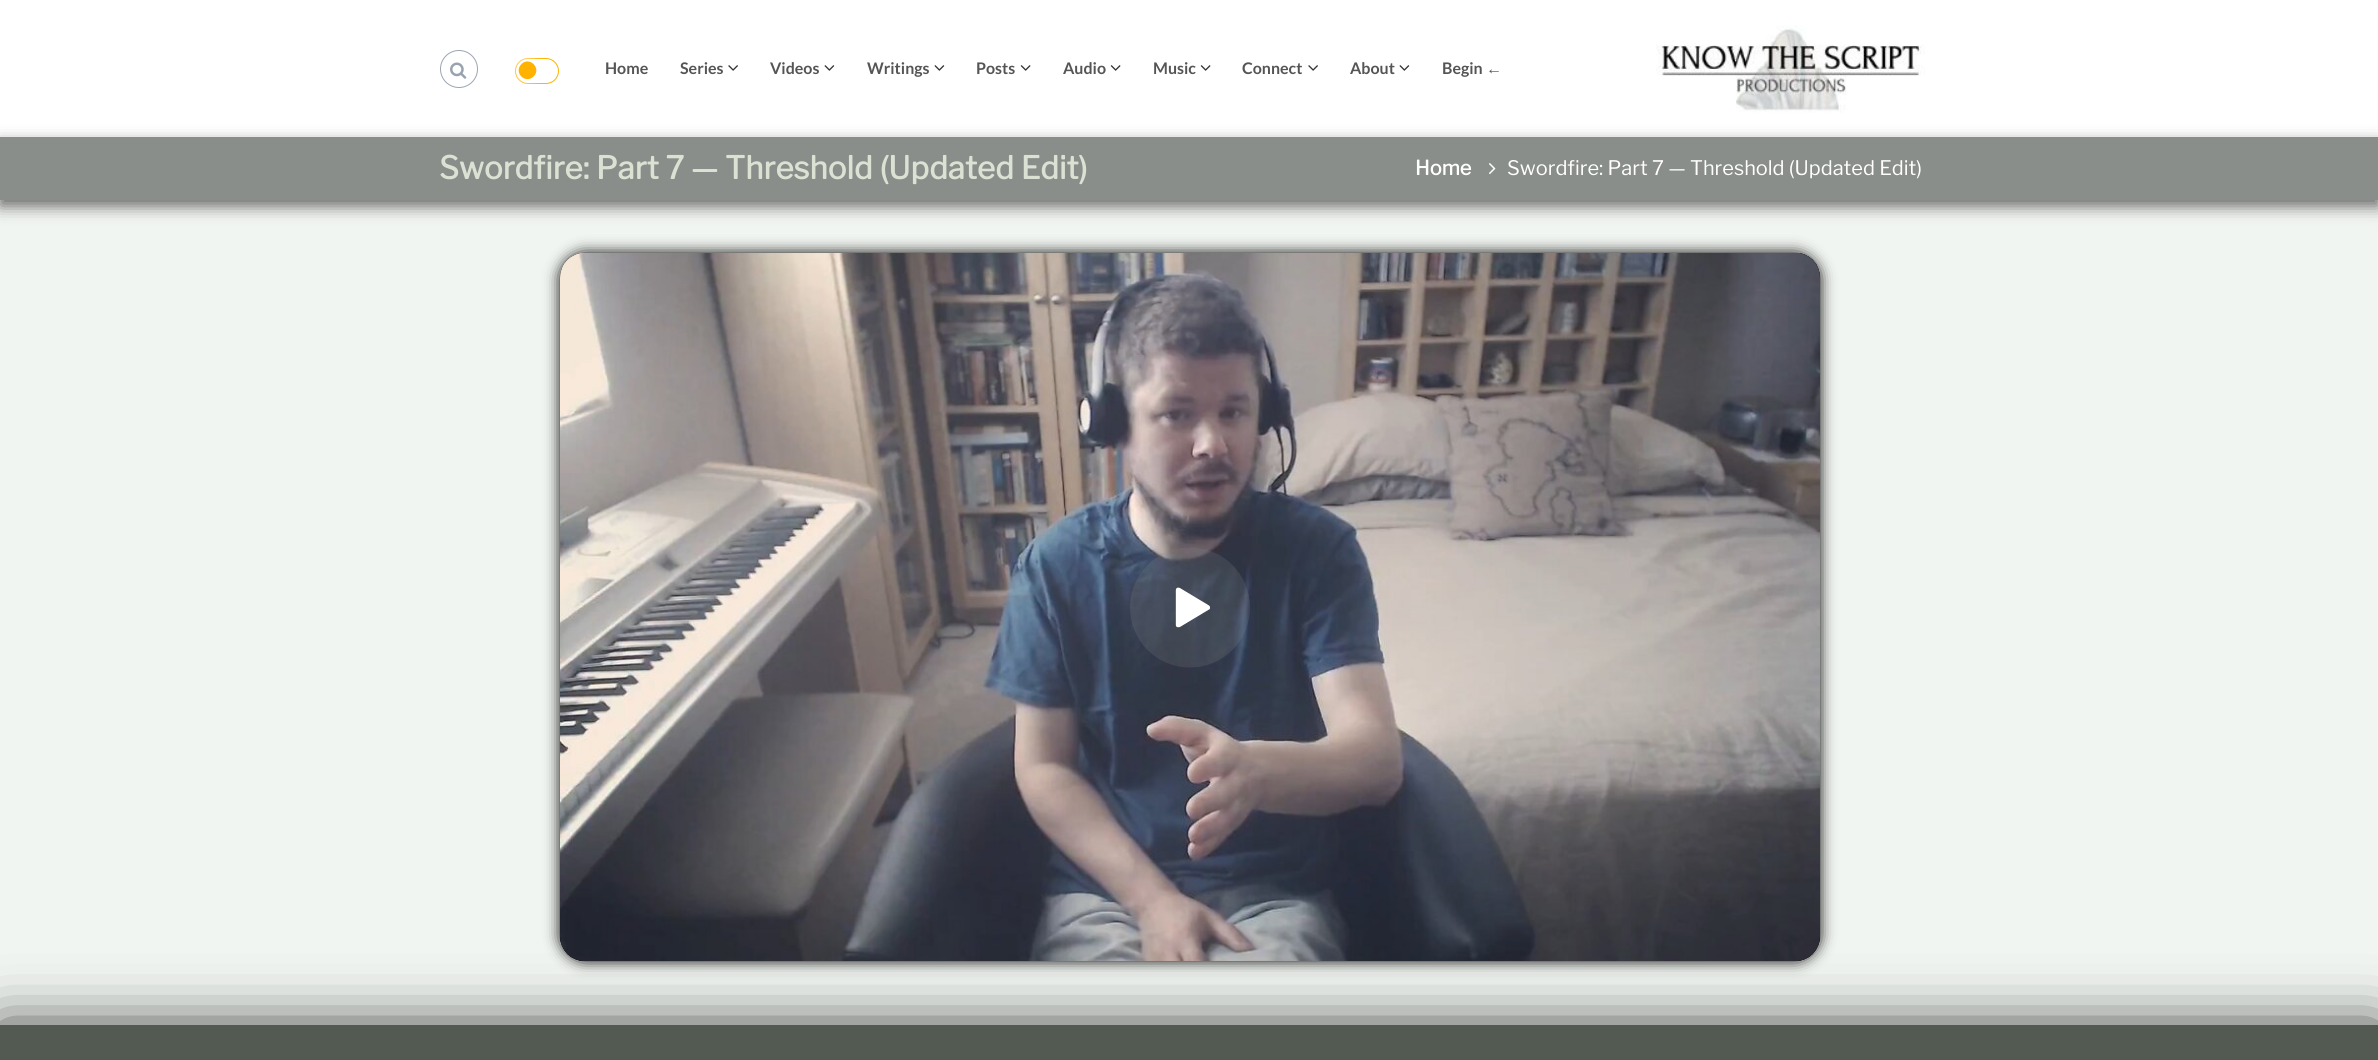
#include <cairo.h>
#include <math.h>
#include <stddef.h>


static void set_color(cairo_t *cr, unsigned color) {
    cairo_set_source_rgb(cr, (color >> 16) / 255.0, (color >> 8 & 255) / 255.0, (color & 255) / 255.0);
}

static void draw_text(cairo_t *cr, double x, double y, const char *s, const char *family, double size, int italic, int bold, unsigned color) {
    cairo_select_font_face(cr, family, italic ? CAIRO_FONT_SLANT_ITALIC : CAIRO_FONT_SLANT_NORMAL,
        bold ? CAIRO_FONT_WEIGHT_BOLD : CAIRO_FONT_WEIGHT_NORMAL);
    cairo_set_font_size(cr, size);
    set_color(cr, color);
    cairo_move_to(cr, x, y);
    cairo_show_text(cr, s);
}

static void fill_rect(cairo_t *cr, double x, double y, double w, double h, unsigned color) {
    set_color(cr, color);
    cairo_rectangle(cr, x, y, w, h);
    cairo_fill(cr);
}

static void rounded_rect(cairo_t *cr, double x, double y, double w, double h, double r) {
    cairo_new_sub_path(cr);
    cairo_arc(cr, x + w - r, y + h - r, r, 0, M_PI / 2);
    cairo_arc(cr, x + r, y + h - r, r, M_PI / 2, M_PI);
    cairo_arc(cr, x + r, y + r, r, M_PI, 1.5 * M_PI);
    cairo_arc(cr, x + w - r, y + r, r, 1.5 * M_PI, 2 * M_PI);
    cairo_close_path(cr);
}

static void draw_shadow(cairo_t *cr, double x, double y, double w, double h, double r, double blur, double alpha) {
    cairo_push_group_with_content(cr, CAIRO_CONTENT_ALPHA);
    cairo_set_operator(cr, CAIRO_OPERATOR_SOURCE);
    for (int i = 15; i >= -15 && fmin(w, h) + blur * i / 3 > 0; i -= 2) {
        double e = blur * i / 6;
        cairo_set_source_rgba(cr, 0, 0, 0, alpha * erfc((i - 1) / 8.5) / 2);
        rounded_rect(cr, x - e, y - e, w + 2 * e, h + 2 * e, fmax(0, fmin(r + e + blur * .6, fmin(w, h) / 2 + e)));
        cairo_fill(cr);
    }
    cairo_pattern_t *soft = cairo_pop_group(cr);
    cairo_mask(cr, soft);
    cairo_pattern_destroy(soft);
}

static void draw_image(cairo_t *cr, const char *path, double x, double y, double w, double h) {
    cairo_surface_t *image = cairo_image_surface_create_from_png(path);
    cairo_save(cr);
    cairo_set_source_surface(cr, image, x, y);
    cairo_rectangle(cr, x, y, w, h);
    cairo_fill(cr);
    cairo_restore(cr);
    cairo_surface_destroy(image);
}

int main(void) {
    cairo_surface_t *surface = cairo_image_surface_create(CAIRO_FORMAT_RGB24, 2378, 1060);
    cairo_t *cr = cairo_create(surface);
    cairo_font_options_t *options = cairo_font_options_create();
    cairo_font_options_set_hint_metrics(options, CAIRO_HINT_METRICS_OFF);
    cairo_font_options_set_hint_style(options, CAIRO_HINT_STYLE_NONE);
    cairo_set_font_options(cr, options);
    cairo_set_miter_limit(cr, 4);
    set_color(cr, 0xF1F5F1);
    cairo_paint(cr);
    fill_rect(cr, 0, 0, 2378, 137, 0xFFFFFF);
    cairo_arc(cr, 459, 69, 18.5, 0, 2 * M_PI);
    set_color(cr, 0x9CA6B2);
    cairo_set_line_width(cr, 1);
    cairo_stroke(cr);
    draw_image(cr, "assets/img1.png", 450, 62, 17, 17);
    rounded_rect(cr, 515.5, 58.5, 43, 25, 12.5);
    set_color(cr, 0xFFB200);
    cairo_stroke(cr);
    set_color(cr, 0xFFFFFF);
    draw_shadow(cr, 519, 61, 17, 18, 8.5, 5.5, 1);
    set_color(cr, 0xFFB200);
    cairo_new_path(cr);
    cairo_move_to(cr, 521.5, 64);
    cairo_curve_to(cr, 529.5, 56, 542, 68.5, 533.5, 76.5);
    cairo_curve_to(cr, 525.5, 84.5, 513, 72.5, 521.5, 64);
    cairo_close_path(cr);
    cairo_fill(cr);
    draw_text(cr, 605, 74, "Home", "Lato", 16, 0, 1, 0x555555);
    draw_text(cr, 680, 74, "Series", "Lato", 16, 0, 1, 0x555555);
    draw_image(cr, "assets/img2.png", 728, 65, 10, 6);
    draw_text(cr, 770, 74, "Videos", "Lato", 16, 0, 1, 0x555555);
    draw_image(cr, "assets/img3.png", 824, 65, 11, 6);
    draw_text(cr, 867, 74, "Writings", "Lato", 16, 0, 1, 0x555555);
    draw_image(cr, "assets/img3.png", 934, 65, 11, 6);
    draw_text(cr, 976, 74, "Posts", "Lato", 16, 0, 1, 0x555555);
    draw_image(cr, "assets/img4.png", 1020, 65, 11, 6);
    draw_text(cr, 1063, 74, "Audio", "Lato", 16, 0, 1, 0x555555);
    draw_image(cr, "assets/img4.png", 1110, 65, 11, 6);
    draw_text(cr, 1153, 74, "Music", "Lato", 16, 0, 1, 0x555555);
    draw_image(cr, "assets/img4.png", 1200, 65, 11, 6);
    draw_text(cr, 1242, 74, "Connect", "Lato", 16, 0, 1, 0x555555);
    draw_image(cr, "assets/img2.png", 1308, 65, 10, 6);
    draw_text(cr, 1350, 74, "About", "Lato", 16, 0, 1, 0x555555);
    draw_image(cr, "assets/img3.png", 1399, 65, 11, 6);
    draw_text(cr, 1442, 74, "Begin", "Lato", 16, 0, 1, 0x555555);
    draw_text(cr, 1486, 74, "←", "Liberation Sans", 16, 0, 1, 0x555555);
    draw_image(cr, "assets/img5.png", 1656, 25, 269, 88);
    set_color(cr, 0x666666);
    draw_shadow(cr, 0, 144, 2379, 62, 0, 8, 1);
    fill_rect(cr, 0, 137, 2378, 63, 0x898E8A);
    draw_text(cr, 439, 179, "Swordfire: Part 7 — Threshold (Updated Edit)", "Libre Franklin", 31.25, 0, 1, 0xDBE2D3);
    draw_text(cr, 1415, 175, "Home", "Libre Franklin", 20, 0, 1, 0xFFFFFF);
    draw_image(cr, "assets/img6.png", 1489, 163, 7, 12);
    draw_text(cr, 1507, 175, "Swordfire: Part 7 — Threshold (Updated Edit)", "Libre Franklin", 20, 0, 0, 0xFFFFFF);
    set_color(cr, 0x000000);
    draw_shadow(cr, 560, 253, 1260, 708, 25, 7.5, 1);
    set_color(cr, 0x1A1A1A);
    draw_shadow(cr, 0, 1031, 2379, 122, 0, 31, 1);
    draw_image(cr, "assets/img7.png", 560, 252, 1260, 709);
    fill_rect(cr, 0, 1025, 2378, 35, 0x525A51);
    cairo_surface_write_to_png(surface, "output.png");
    cairo_font_options_destroy(options);
    cairo_destroy(cr);
    cairo_surface_destroy(surface);
    return 0;
}
